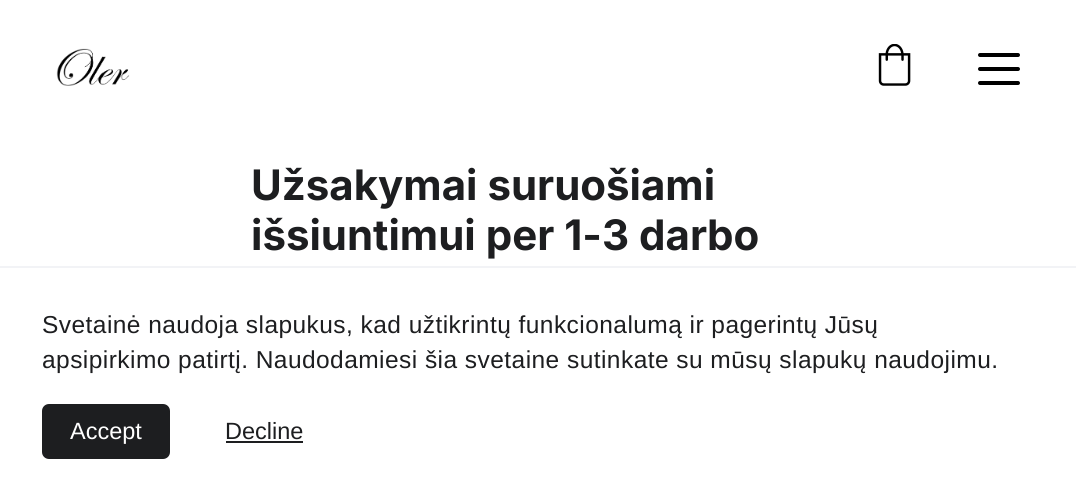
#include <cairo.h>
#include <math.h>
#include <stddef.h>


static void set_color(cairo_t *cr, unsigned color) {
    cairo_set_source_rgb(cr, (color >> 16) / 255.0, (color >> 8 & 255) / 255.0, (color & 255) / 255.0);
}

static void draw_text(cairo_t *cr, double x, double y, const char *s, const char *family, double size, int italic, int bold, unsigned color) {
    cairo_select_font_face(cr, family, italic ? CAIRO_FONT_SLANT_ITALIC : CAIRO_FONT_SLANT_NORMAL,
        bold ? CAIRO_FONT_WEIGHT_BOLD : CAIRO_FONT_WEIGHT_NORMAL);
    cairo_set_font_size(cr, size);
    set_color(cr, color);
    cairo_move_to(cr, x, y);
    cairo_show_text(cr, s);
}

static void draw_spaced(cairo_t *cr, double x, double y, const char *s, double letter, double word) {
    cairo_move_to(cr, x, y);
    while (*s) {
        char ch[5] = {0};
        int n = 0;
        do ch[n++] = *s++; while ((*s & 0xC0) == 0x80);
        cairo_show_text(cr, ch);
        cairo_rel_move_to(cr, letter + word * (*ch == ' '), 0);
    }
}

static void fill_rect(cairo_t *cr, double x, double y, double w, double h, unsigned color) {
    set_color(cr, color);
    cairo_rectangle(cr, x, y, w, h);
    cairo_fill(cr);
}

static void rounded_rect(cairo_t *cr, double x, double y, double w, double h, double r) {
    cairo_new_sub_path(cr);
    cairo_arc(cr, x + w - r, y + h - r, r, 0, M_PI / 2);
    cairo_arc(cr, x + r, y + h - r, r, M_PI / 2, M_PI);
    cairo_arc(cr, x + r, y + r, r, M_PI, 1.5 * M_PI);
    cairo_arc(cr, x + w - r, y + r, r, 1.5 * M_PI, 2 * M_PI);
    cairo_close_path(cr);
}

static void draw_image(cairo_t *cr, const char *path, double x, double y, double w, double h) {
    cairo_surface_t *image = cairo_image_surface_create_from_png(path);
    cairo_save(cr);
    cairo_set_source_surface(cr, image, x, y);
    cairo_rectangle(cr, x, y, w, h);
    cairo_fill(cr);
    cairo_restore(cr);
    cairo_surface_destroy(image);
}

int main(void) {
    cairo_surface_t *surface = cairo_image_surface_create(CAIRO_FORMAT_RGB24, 1076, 496);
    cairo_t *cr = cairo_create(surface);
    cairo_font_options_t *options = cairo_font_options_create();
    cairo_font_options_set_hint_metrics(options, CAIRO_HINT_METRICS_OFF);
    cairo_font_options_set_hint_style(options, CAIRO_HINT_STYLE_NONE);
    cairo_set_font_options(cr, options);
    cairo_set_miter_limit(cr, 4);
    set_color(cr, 0xFFFFFF);
    cairo_paint(cr);
    draw_image(cr, "assets/img1.png", 56, 48, 74, 38);
    draw_image(cr, "assets/img2.png", 878, 44, 33, 42);
    set_color(cr, 0x000000);
    rounded_rect(cr, 978, 53, 42, 4, 2);
    cairo_fill(cr);
    rounded_rect(cr, 978, 67, 42, 4, 2);
    cairo_fill(cr);
    rounded_rect(cr, 978, 81, 42, 4, 2);
    cairo_fill(cr);
    draw_text(cr, 251, 200, "Užsakymai suruošiami", "Inter", 42, 0, 1, 0x1D1E20);
    draw_text(cr, 251, 250, "išsiuntimui per 1-3 darbo", "Inter", 42, 0, 1, 0x1D1E20);
    fill_rect(cr, 0, 266, 1076, 2, 0xF2F3F6);
    cairo_select_font_face(cr, "Liberation Sans", CAIRO_FONT_SLANT_NORMAL, CAIRO_FONT_WEIGHT_NORMAL);
    cairo_set_font_size(cr, 24.5);
    set_color(cr, 0x1D1E20);
    draw_spaced(cr, 42, 333, "Svetainė naudoja slapukus, kad užtikrintų funkcionalumą ir pagerintų Jūsų", 0.45, 0);
    draw_spaced(cr, 42, 368, "apsipirkimo patirtį. Naudodamiesi šia svetaine sutinkate su mūsų slapukų naudojimu.", 0.45, 0);
    rounded_rect(cr, 42, 404, 128, 55, 7);
    cairo_fill(cr);
    draw_text(cr, 70, 439, "Accept", "Liberation Sans", 23.5, 0, 0, 0xFFFFFF);
    draw_text(cr, 225, 439, "Decline", "Liberation Sans", 23.5, 0, 0, 0x1D1E20);
    fill_rect(cr, 226, 441, 77, 2, 0x1D1E20);
    cairo_surface_write_to_png(surface, "output.png");
    cairo_font_options_destroy(options);
    cairo_destroy(cr);
    cairo_surface_destroy(surface);
    return 0;
}
